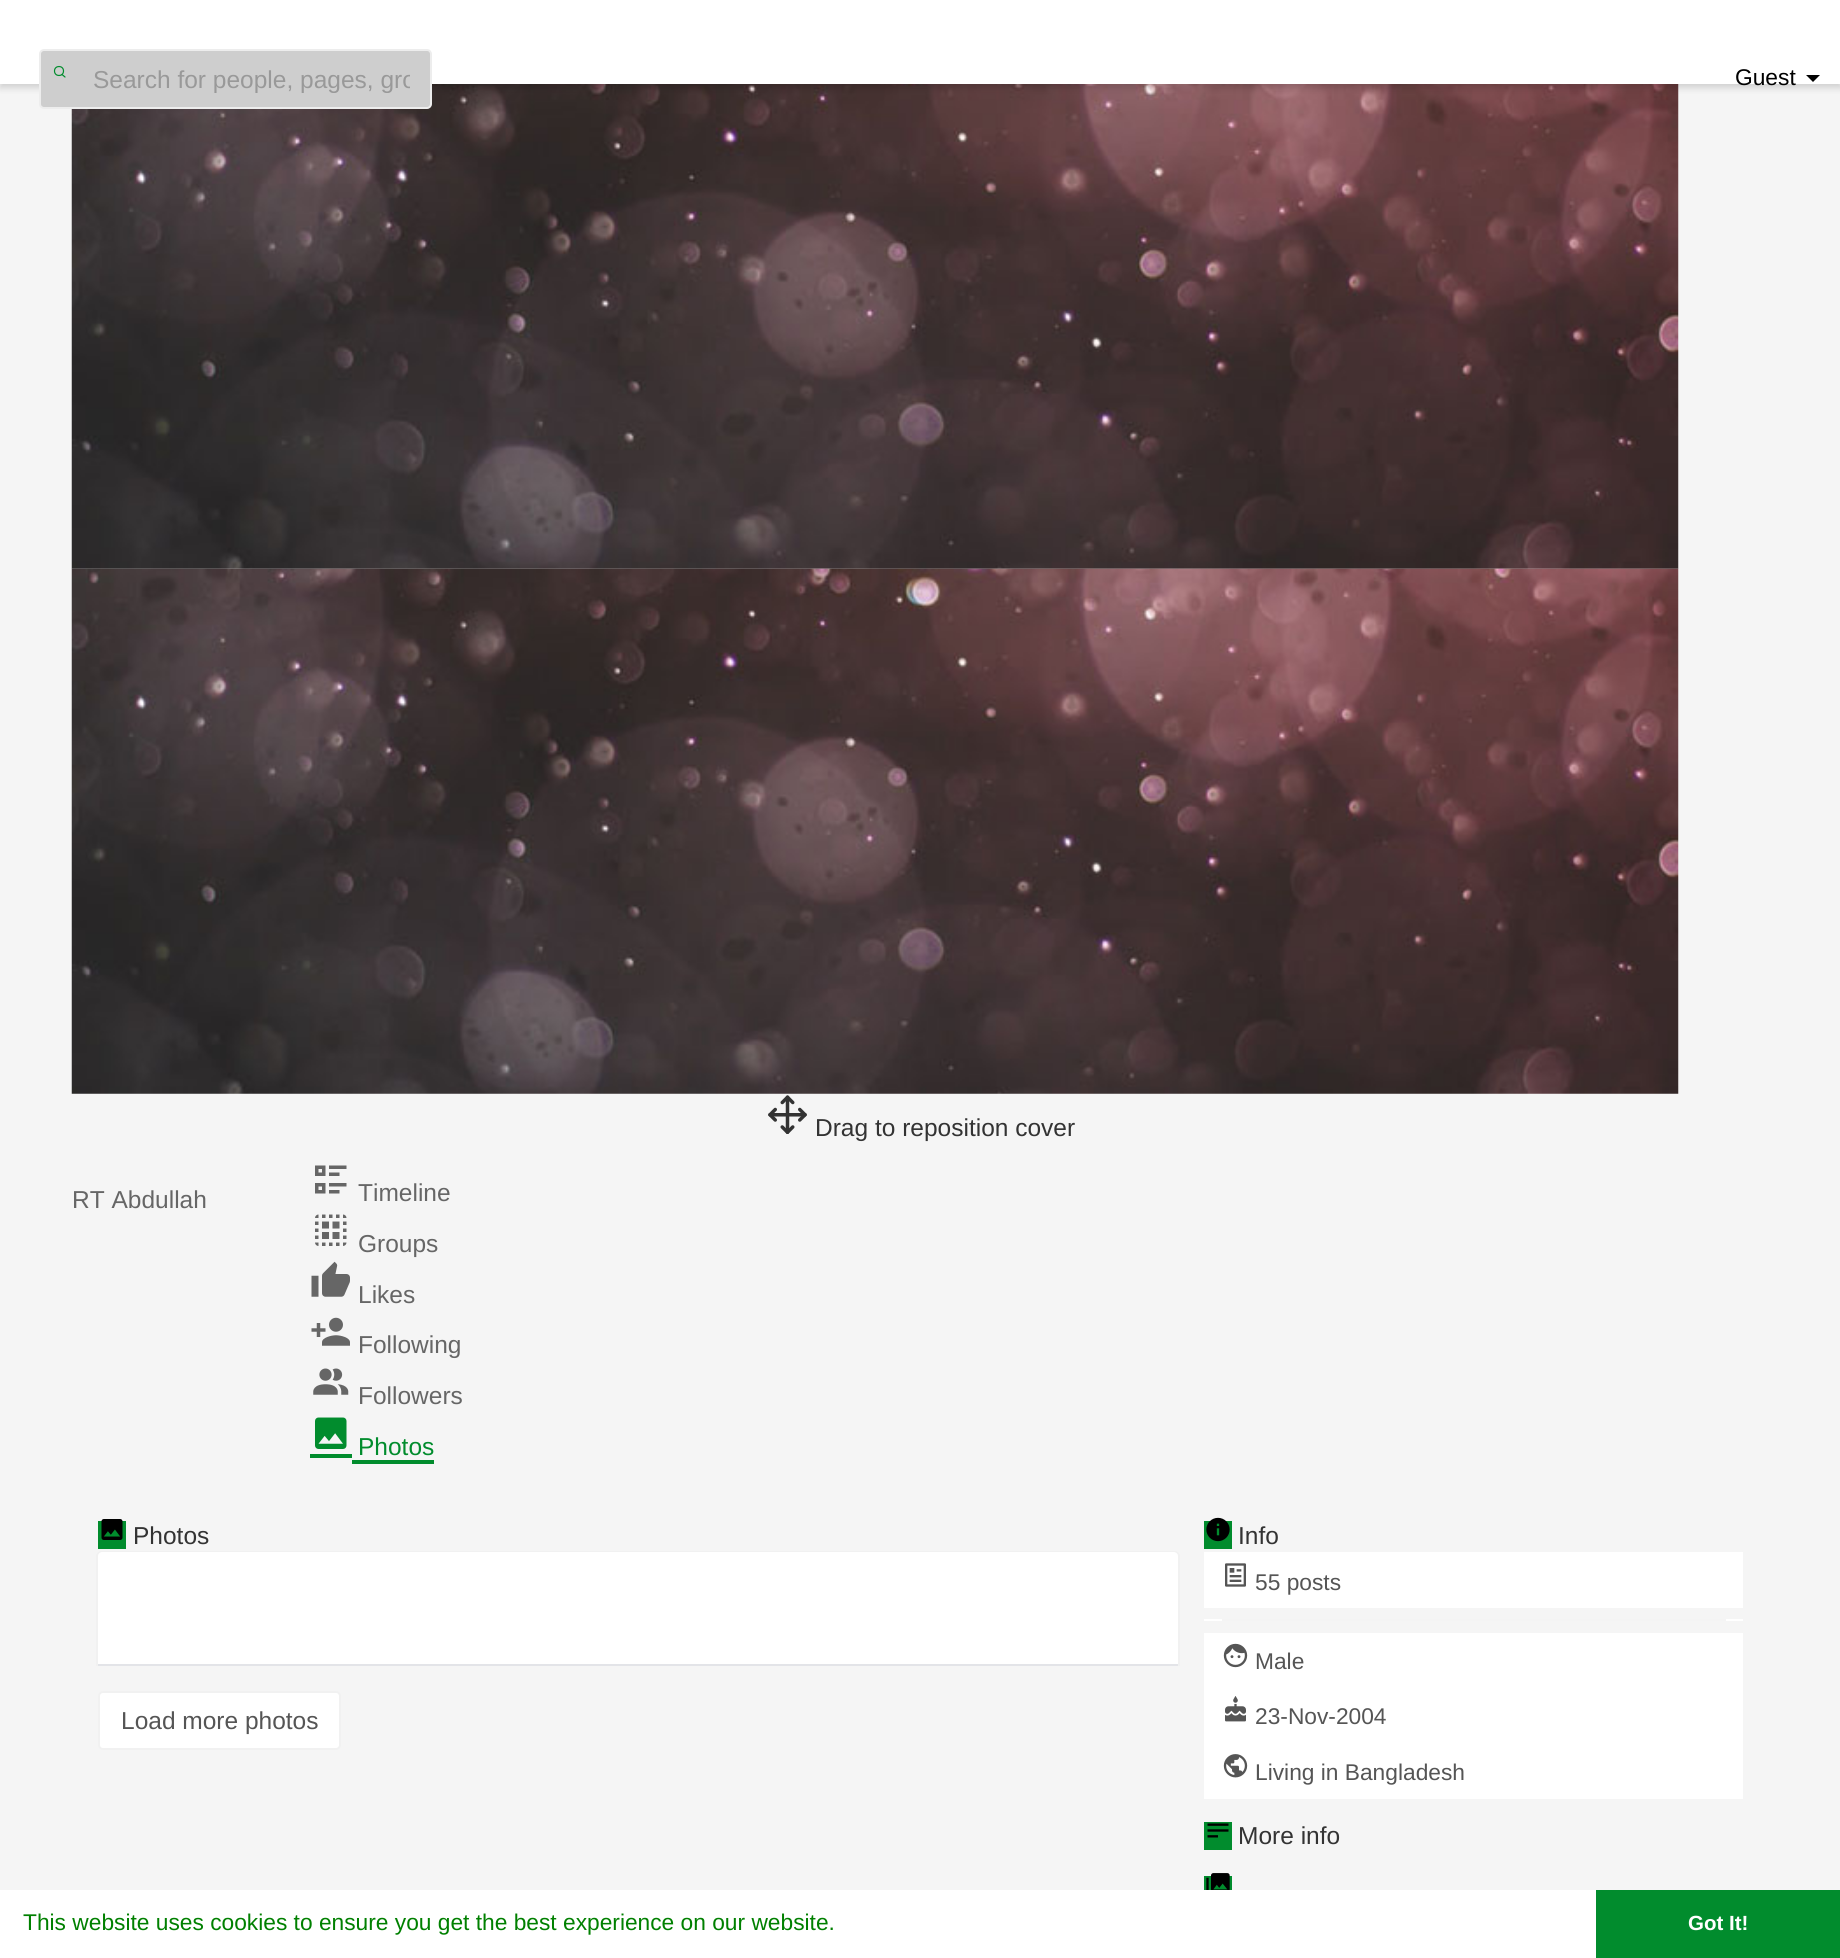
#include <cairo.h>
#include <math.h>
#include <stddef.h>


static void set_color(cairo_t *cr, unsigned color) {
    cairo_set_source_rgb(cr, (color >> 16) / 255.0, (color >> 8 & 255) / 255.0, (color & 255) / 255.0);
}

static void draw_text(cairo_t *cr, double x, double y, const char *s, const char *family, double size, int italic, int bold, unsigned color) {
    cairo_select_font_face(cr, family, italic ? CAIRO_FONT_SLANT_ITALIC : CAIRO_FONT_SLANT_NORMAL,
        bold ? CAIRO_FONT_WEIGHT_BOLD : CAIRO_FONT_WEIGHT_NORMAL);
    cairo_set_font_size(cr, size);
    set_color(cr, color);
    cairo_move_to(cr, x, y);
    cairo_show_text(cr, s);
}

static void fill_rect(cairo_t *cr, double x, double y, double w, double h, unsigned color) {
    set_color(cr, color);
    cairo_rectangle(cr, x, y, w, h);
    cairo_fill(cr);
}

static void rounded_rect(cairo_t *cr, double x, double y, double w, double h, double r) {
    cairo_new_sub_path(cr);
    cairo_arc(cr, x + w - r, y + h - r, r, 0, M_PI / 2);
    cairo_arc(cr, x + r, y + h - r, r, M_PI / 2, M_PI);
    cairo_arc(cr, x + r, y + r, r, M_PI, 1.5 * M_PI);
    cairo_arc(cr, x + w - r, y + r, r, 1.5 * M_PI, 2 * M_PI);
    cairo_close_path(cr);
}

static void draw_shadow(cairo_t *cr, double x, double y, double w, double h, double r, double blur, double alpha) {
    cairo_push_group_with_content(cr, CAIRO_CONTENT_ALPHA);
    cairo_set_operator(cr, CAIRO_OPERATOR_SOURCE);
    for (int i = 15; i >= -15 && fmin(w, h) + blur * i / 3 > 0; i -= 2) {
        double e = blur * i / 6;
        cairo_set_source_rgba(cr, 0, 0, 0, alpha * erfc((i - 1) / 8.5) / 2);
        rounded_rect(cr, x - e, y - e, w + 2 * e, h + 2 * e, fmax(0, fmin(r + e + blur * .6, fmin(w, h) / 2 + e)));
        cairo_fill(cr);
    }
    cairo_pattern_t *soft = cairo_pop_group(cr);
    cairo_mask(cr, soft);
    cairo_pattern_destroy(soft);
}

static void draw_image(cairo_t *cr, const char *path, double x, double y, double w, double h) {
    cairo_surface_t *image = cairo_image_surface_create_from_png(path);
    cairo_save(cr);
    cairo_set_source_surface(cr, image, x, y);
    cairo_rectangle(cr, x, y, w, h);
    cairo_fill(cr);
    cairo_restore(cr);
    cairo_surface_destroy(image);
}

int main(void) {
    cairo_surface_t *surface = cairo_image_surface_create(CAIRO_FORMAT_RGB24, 1840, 1958);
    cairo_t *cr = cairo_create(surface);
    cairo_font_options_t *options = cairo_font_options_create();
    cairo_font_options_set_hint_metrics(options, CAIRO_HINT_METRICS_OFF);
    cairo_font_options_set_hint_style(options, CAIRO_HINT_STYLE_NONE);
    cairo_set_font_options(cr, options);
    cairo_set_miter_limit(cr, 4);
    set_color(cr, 0xF5F5F5);
    cairo_paint(cr);
    draw_image(cr, "assets/img1.png", 71, 84, 1608, 485);
    set_color(cr, 0x000000);
    draw_shadow(cr, 0, 4, 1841, 84, 0, 3.5, 0.15);
    fill_rect(cr, 0, 0, 1840, 84, 0xFFFFFF);
    set_color(cr, 0xCECECE);
    rounded_rect(cr, 40, 50, 391, 58, 4);
    cairo_fill_preserve(cr);
    set_color(cr, 0xEDEDED);
    cairo_stroke(cr);
    cairo_arc(cr, 59, 71, 4.5, 0, 2 * M_PI);
    set_color(cr, 0x018C2D);
    cairo_set_line_width(cr, 1.2);
    cairo_stroke(cr);
    cairo_new_path(cr);
    cairo_move_to(cr, 65, 77);
    cairo_line_to(cr, 62, 74.5);
    cairo_set_line_cap(cr, CAIRO_LINE_CAP_ROUND);
    cairo_set_line_join(cr, CAIRO_LINE_JOIN_ROUND);
    cairo_stroke(cr);
    cairo_save(cr);
    cairo_rectangle(cr, 93, 65, 317, 28);
    cairo_clip(cr);
    draw_text(cr, 93, 88, "Search for people, pages, gro", "Liberation Sans", 24.5, 0, 0, 0x999999);
    cairo_restore(cr);
    draw_text(cr, 1735, 85, "Guest", "Liberation Sans", 22.75, 0, 0, 0x000000);
    cairo_new_path(cr);
    cairo_move_to(cr, 1806, 75);
    cairo_line_to(cr, 1820, 75);
    cairo_line_to(cr, 1813, 82);
    cairo_close_path(cr);
    cairo_fill(cr);
    draw_image(cr, "assets/img2.png", 71, 568, 1608, 526);
    draw_image(cr, "assets/img3.png", 768, 1095, 39, 39);
    draw_text(cr, 815, 1136, "Drag to reposition cover", "Liberation Sans", 24.5, 0, 0, 0x333333);
    draw_text(cr, 72, 1208, "RT Abdullah", "Liberation Sans", 24.5, 0, 0, 0x666666);
    draw_image(cr, "assets/img4.png", 315, 1165, 32, 29);
    draw_text(cr, 358, 1201, "Timeline", "Liberation Sans", 24.5, 0, 0, 0x666666);
    draw_image(cr, "assets/img5.png", 315, 1214, 32, 32);
    draw_text(cr, 358, 1252, "Groups", "Liberation Sans", 24.5, 0, 0, 0x666666);
    draw_image(cr, "assets/img6.png", 311, 1261, 39, 36);
    draw_text(cr, 358, 1303, "Likes", "Liberation Sans", 24.5, 0, 0, 0x666666);
    draw_image(cr, "assets/img7.png", 311, 1317, 39, 29);
    draw_text(cr, 358, 1353, "Following", "Liberation Sans", 24.5, 0, 0, 0x666666);
    draw_image(cr, "assets/img8.png", 313, 1368, 36, 27);
    draw_text(cr, 358, 1404, "Followers", "Liberation Sans", 24.5, 0, 0, 0x666666);
    draw_image(cr, "assets/img9.png", 315, 1417, 32, 32);
    draw_text(cr, 358, 1455, "Photos", "Liberation Sans", 24.5, 0, 0, 0x018C2D);
    fill_rect(cr, 310, 1454, 42, 4, 0x018C2D);
    fill_rect(cr, 352, 1460, 82, 4, 0x018C2D);
    fill_rect(cr, 98, 1521, 28, 28, 0x018C2D);
    draw_image(cr, "assets/img10.png", 101, 1519, 22, 21);
    draw_text(cr, 133, 1544, "Photos", "Liberation Sans", 24.5, 0, 0, 0x333333);
    cairo_new_path(cr);
    cairo_move_to(cr, 101, 1552);
    cairo_line_to(cr, 1175, 1552);
    cairo_curve_to(cr, 1177, 1552, 1179, 1554, 1179, 1556);
    cairo_line_to(cr, 1179, 1665);
    cairo_line_to(cr, 97, 1665);
    cairo_line_to(cr, 97, 1556);
    cairo_curve_to(cr, 97, 1554, 99, 1552, 101, 1552);
    cairo_close_path(cr);
    set_color(cr, 0xF1F1F1);
    cairo_set_line_width(cr, 2);
    cairo_set_line_cap(cr, CAIRO_LINE_CAP_BUTT);
    cairo_set_line_join(cr, CAIRO_LINE_JOIN_MITER);
    cairo_stroke(cr);
    set_color(cr, 0xE3E4E8);
    cairo_new_path(cr);
    cairo_move_to(cr, 98, 1664);
    cairo_line_to(cr, 98, 1666);
    cairo_line_to(cr, 1178, 1666);
    cairo_line_to(cr, 1178, 1557);
    cairo_line_to(cr, 1178, 1664);
    cairo_close_path(cr);
    cairo_fill(cr);
    set_color(cr, 0xFFFFFF);
    cairo_new_path(cr);
    cairo_move_to(cr, 102, 1552);
    cairo_line_to(cr, 1174, 1552);
    cairo_curve_to(cr, 1176, 1552, 1178, 1554, 1178, 1556);
    cairo_line_to(cr, 1178, 1664);
    cairo_line_to(cr, 98, 1664);
    cairo_line_to(cr, 98, 1556);
    cairo_curve_to(cr, 98, 1554, 100, 1552, 102, 1552);
    cairo_close_path(cr);
    cairo_fill(cr);
    rounded_rect(cr, 99, 1692, 241, 57, 4);
    cairo_fill_preserve(cr);
    set_color(cr, 0xF1F1F1);
    cairo_stroke(cr);
    draw_text(cr, 121, 1729, "Load more photos", "Liberation Sans", 24.5, 0, 0, 0x555555);
    fill_rect(cr, 1204, 1521, 28, 28, 0x018C2D);
    draw_image(cr, "assets/img11.png", 1206, 1517, 24, 25);
    draw_text(cr, 1238, 1544, "Info", "Liberation Sans", 24.5, 0, 0, 0x333333);
    fill_rect(cr, 1204, 1552, 539, 56, 0xFFFFFF);
    draw_image(cr, "assets/img12.png", 1225, 1563, 21, 24);
    draw_text(cr, 1255, 1590, "55 posts", "Liberation Sans", 22.75, 0, 0, 0x555555);
    fill_rect(cr, 1204, 1619, 539, 2, 0xFFFFFF);
    fill_rect(cr, 1222, 1619, 504, 2, 0xF4F4F4);
    fill_rect(cr, 1204, 1633, 539, 166, 0xFFFFFF);
    draw_image(cr, "assets/img13.png", 1223, 1643, 25, 25);
    draw_text(cr, 1255, 1669, "Male", "Liberation Sans", 22.75, 0, 0, 0x555555);
    draw_image(cr, "assets/img14.png", 1225, 1696, 21, 26);
    draw_text(cr, 1255, 1724, "23-Nov-2004", "Liberation Sans", 22.75, 0, 0, 0x555555);
    draw_image(cr, "assets/img15.png", 1223, 1754, 25, 24);
    draw_text(cr, 1255, 1780, "Living in Bangladesh", "Liberation Sans", 22.75, 0, 0, 0x555555);
    fill_rect(cr, 1204, 1822, 28, 28, 0x018C2D);
    draw_image(cr, "assets/img16.png", 1207, 1823, 22, 15);
    draw_text(cr, 1238, 1844, "More info", "Liberation Sans", 24.5, 0, 0, 0x333333);
    fill_rect(cr, 1204, 1876, 28, 14, 0x018C2D);
    draw_image(cr, "assets/img17.png", 1206, 1873, 24, 17);
    fill_rect(cr, 0, 1890, 1596, 68, 0xFFFFFF);
    draw_text(cr, 23, 1930, "This website uses cookies to ensure you get the best experience on our website.", "Liberation Sans", 22.75, 0, 0, 0x008000);
    fill_rect(cr, 1596, 1890, 244, 68, 0x018C2D);
    draw_text(cr, 1688, 1930, "Got It!", "Liberation Sans", 20.5, 0, 1, 0xFFFFFF);
    cairo_surface_write_to_png(surface, "output.png");
    cairo_font_options_destroy(options);
    cairo_destroy(cr);
    cairo_surface_destroy(surface);
    return 0;
}
